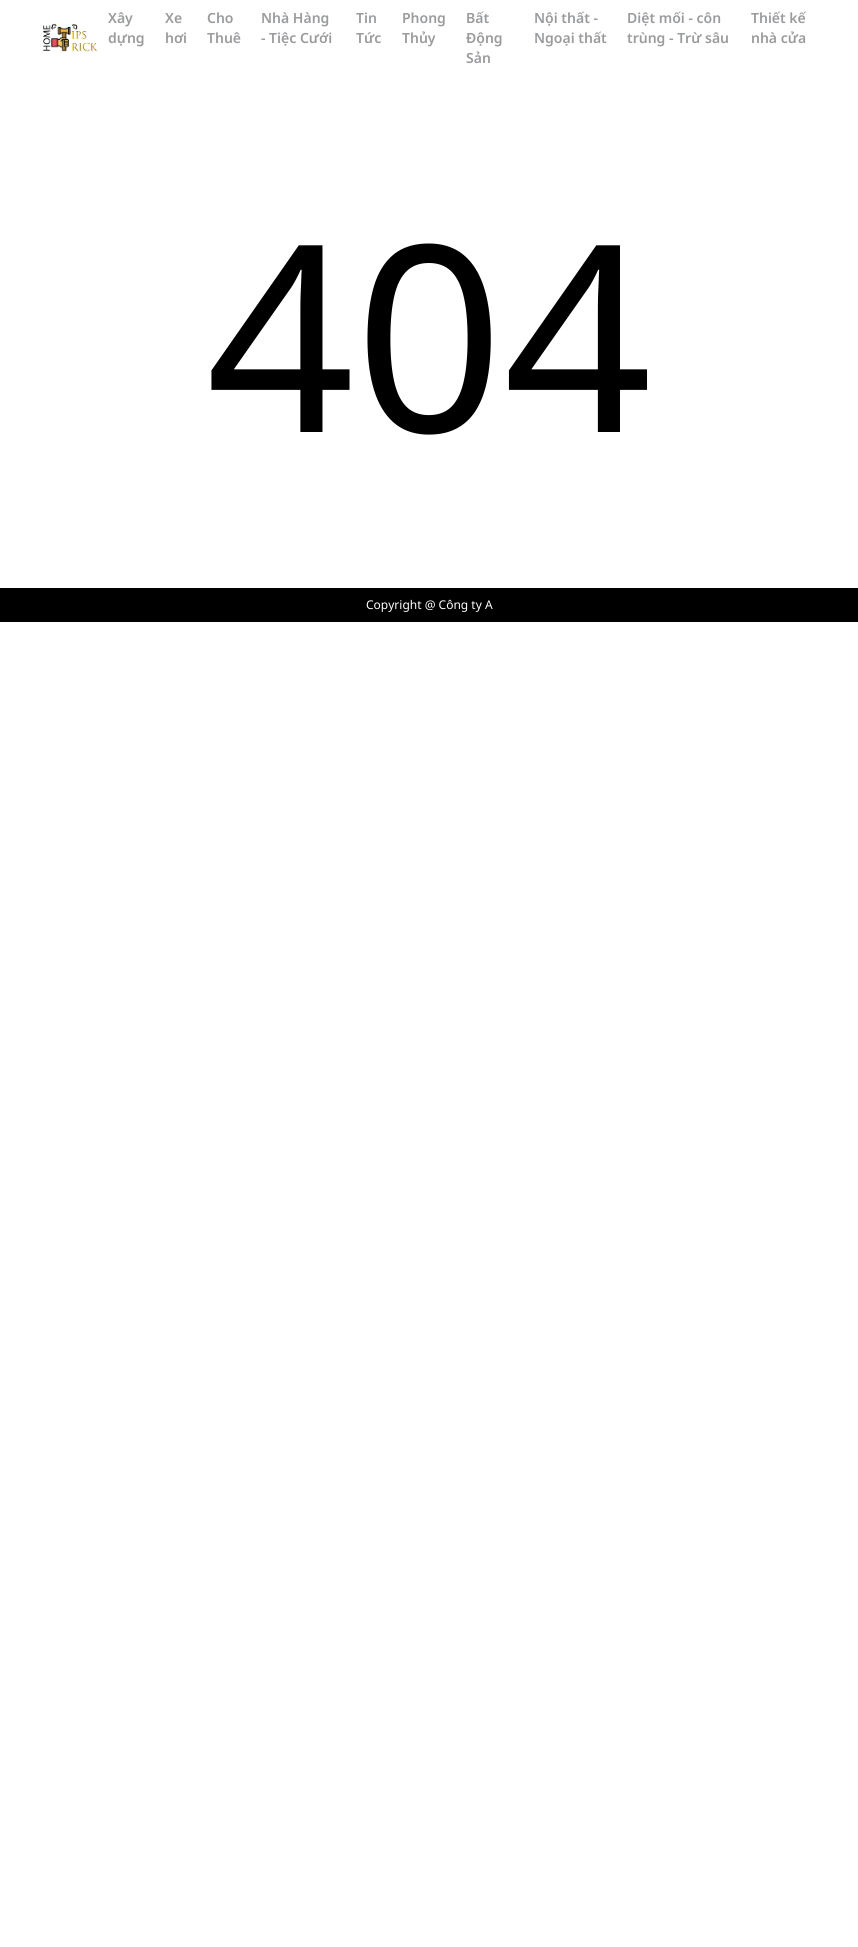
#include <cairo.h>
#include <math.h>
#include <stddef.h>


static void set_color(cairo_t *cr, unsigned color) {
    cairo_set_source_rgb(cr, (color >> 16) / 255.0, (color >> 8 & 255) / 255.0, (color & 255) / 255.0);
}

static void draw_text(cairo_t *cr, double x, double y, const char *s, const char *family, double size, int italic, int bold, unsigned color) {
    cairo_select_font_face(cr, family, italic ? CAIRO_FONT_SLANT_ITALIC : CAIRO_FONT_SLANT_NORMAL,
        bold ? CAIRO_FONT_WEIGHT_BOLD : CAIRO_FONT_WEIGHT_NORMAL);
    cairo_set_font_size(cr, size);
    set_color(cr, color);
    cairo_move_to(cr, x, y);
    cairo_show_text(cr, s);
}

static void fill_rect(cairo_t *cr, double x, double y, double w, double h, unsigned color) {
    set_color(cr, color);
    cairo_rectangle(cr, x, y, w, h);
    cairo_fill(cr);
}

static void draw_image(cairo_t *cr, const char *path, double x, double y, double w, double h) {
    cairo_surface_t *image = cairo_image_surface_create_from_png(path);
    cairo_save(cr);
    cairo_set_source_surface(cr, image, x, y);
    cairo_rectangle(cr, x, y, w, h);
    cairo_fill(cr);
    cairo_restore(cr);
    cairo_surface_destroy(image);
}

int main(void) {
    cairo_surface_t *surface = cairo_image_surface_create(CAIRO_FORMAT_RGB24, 858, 1947);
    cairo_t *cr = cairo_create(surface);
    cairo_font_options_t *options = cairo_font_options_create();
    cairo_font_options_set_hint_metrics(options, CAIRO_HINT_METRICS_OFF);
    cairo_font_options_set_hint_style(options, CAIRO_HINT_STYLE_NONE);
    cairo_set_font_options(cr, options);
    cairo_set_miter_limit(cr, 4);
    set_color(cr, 0xFFFFFF);
    cairo_paint(cr);
    draw_image(cr, "assets/img1.png", 43, 23, 55, 29);
    draw_text(cr, 108, 23, "Xây", "Noto Sans SemiBold", 14, 0, 0, 0x9A9B9D);
    draw_text(cr, 108, 43, "dựng", "Noto Sans SemiBold", 14, 0, 0, 0x9A9B9D);
    draw_text(cr, 165, 23, "Xe", "Noto Sans SemiBold", 14, 0, 0, 0x9A9B9D);
    draw_text(cr, 165, 43, "hơi", "Noto Sans SemiBold", 14, 0, 0, 0x9A9B9D);
    draw_text(cr, 207, 23, "Cho", "Noto Sans SemiBold", 14, 0, 0, 0x9A9B9D);
    draw_text(cr, 207, 43, "Thuê", "Noto Sans SemiBold", 14, 0, 0, 0x9A9B9D);
    draw_text(cr, 261, 23, "Nhà Hàng", "Noto Sans SemiBold", 14, 0, 0, 0x9A9B9D);
    draw_text(cr, 261, 43, "- Tiệc Cưới", "Noto Sans SemiBold", 14, 0, 0, 0x9A9B9D);
    draw_text(cr, 356, 23, "Tin", "Noto Sans SemiBold", 14, 0, 0, 0x9A9B9D);
    draw_text(cr, 356, 43, "Tức", "Noto Sans SemiBold", 14, 0, 0, 0x9A9B9D);
    draw_text(cr, 402, 23, "Phong", "Noto Sans SemiBold", 14, 0, 0, 0x9A9B9D);
    draw_text(cr, 402, 43, "Thủy", "Noto Sans SemiBold", 14, 0, 0, 0x9A9B9D);
    draw_text(cr, 466, 23, "Bất", "Noto Sans SemiBold", 14, 0, 0, 0x9A9B9D);
    draw_text(cr, 466, 43, "Động", "Noto Sans SemiBold", 14, 0, 0, 0x9A9B9D);
    draw_text(cr, 466, 63, "Sản", "Noto Sans SemiBold", 14, 0, 0, 0x9A9B9D);
    draw_text(cr, 534, 23, "Nội thất -", "Noto Sans SemiBold", 14, 0, 0, 0x9A9B9D);
    draw_text(cr, 534, 43, "Ngoại thất", "Noto Sans SemiBold", 14, 0, 0, 0x9A9B9D);
    draw_text(cr, 627, 23, "Diệt mối - côn", "Noto Sans SemiBold", 14, 0, 0, 0x9A9B9D);
    draw_text(cr, 627, 43, "trùng - Trừ sâu", "Noto Sans SemiBold", 14, 0, 0, 0x9A9B9D);
    draw_text(cr, 751, 23, "Thiết kế", "Noto Sans SemiBold", 14, 0, 0, 0x9A9B9D);
    draw_text(cr, 751, 43, "nhà cửa", "Noto Sans SemiBold", 14, 0, 0, 0x9A9B9D);
    draw_text(cr, 206, 432, "404", "Noto Sans", 260, 0, 0, 0x000000);
    fill_rect(cr, 0, 588, 858, 34, 0x000000);
    draw_text(cr, 366, 609, "Copyright @ Công ty A", "Noto Sans", 12, 0, 0, 0xFFFFFF);
    cairo_surface_write_to_png(surface, "output.png");
    cairo_font_options_destroy(options);
    cairo_destroy(cr);
    cairo_surface_destroy(surface);
    return 0;
}
